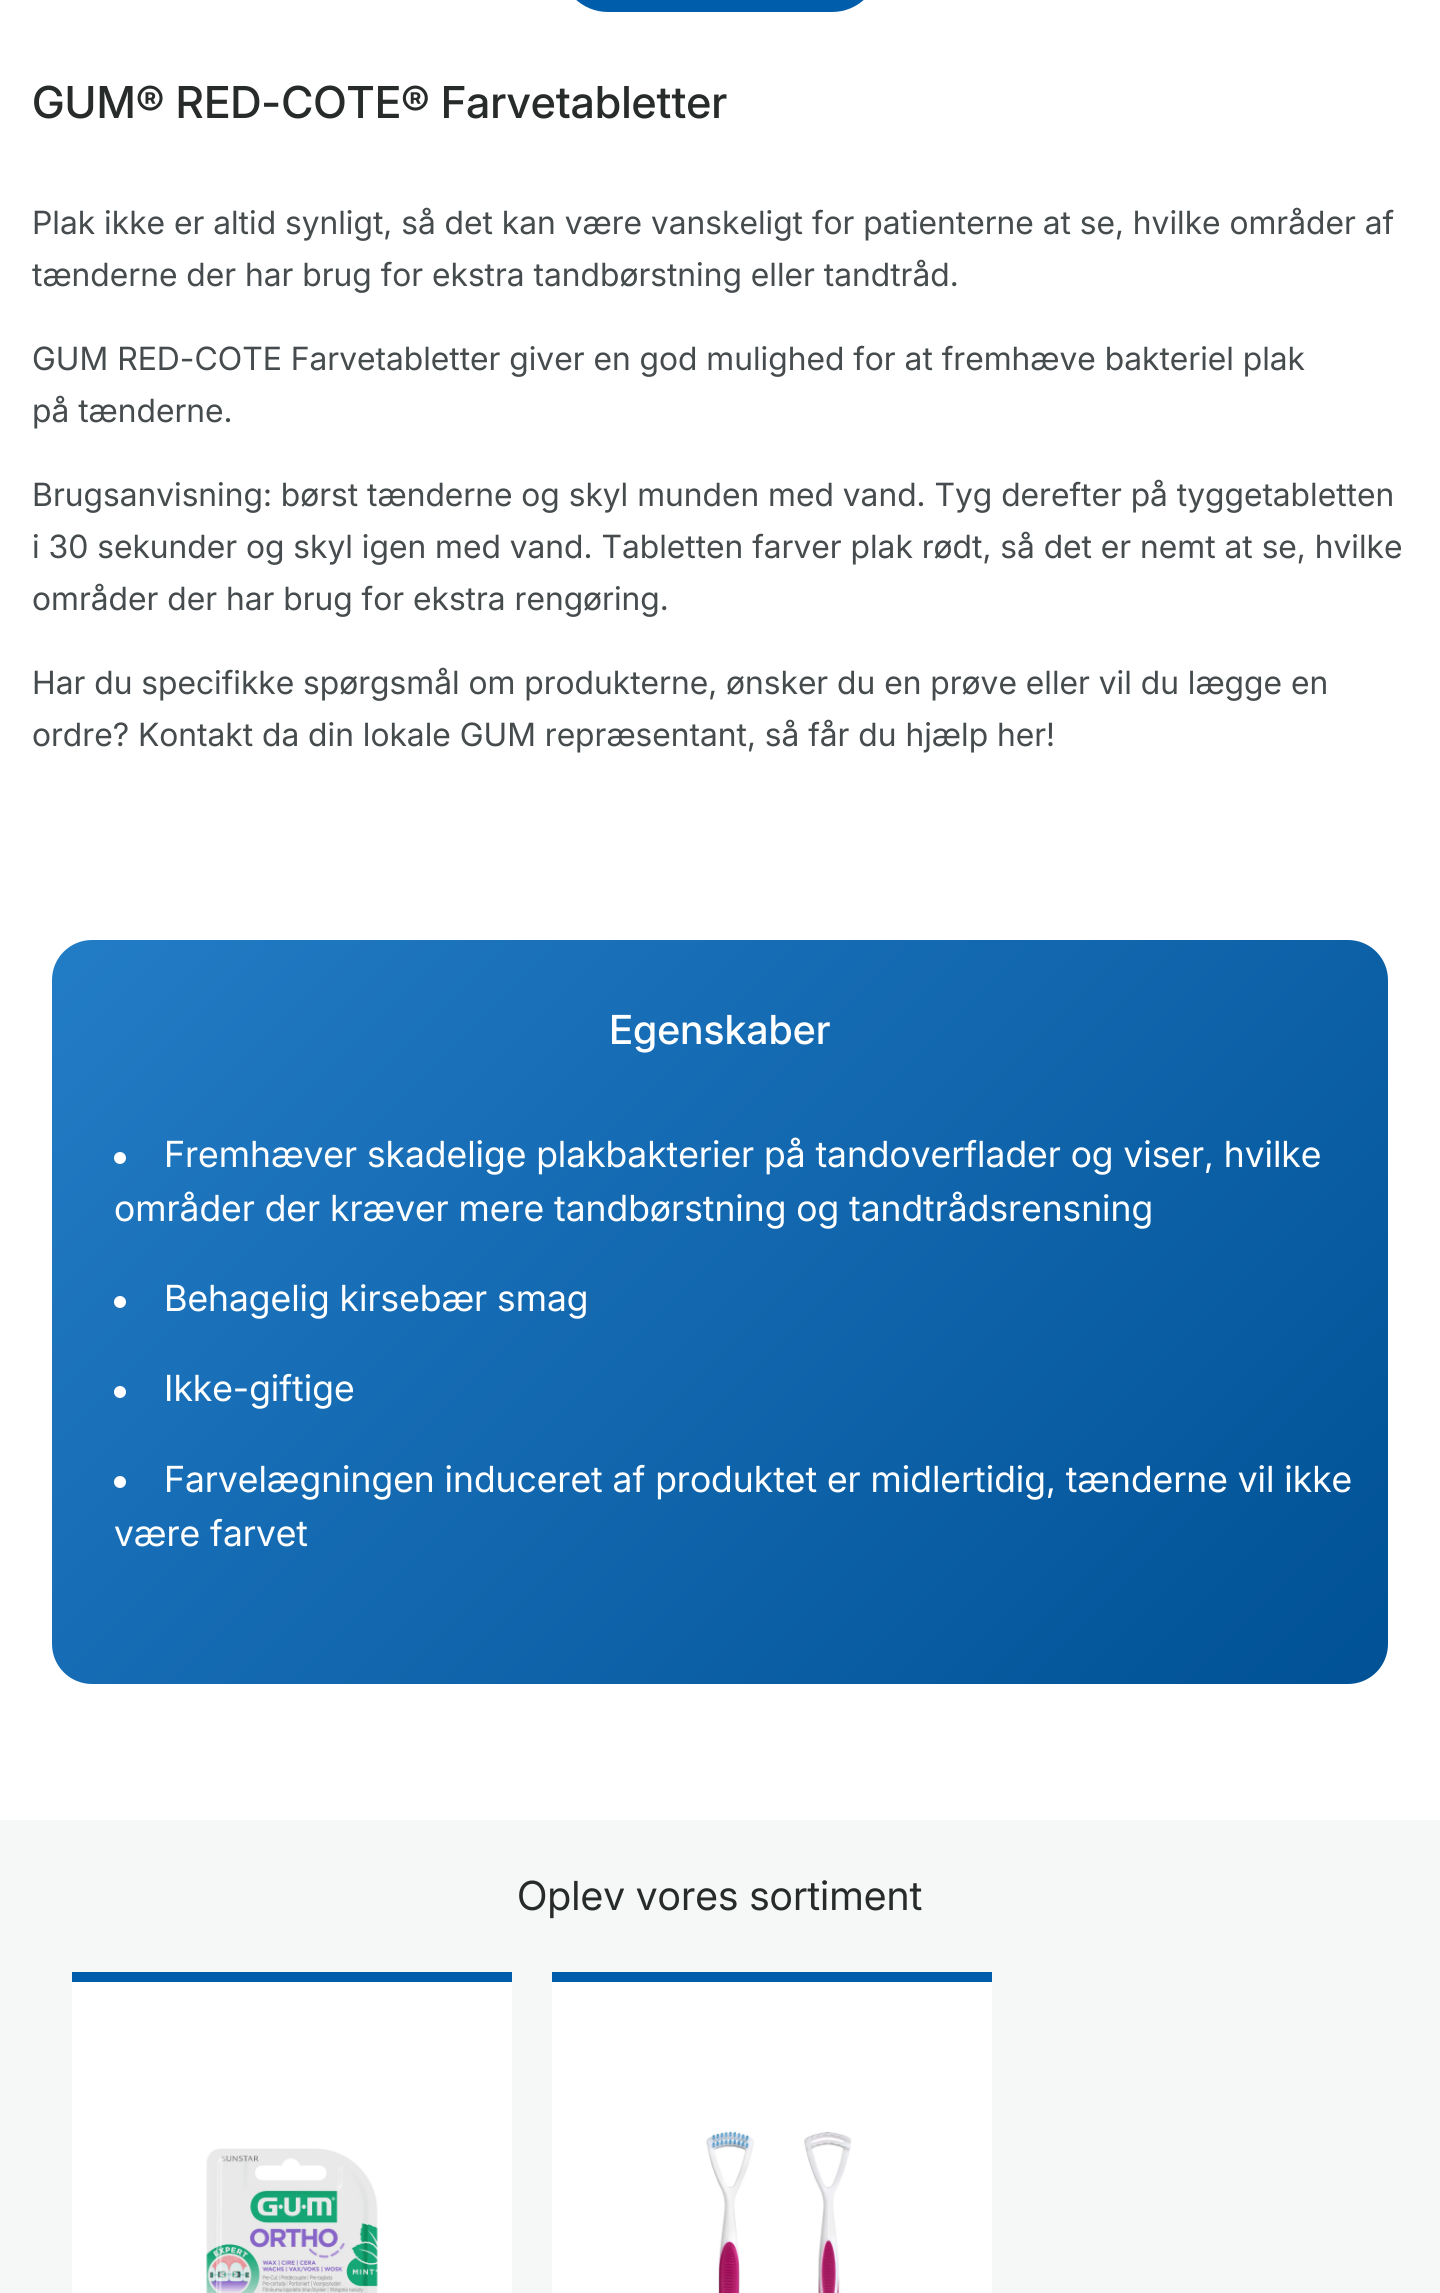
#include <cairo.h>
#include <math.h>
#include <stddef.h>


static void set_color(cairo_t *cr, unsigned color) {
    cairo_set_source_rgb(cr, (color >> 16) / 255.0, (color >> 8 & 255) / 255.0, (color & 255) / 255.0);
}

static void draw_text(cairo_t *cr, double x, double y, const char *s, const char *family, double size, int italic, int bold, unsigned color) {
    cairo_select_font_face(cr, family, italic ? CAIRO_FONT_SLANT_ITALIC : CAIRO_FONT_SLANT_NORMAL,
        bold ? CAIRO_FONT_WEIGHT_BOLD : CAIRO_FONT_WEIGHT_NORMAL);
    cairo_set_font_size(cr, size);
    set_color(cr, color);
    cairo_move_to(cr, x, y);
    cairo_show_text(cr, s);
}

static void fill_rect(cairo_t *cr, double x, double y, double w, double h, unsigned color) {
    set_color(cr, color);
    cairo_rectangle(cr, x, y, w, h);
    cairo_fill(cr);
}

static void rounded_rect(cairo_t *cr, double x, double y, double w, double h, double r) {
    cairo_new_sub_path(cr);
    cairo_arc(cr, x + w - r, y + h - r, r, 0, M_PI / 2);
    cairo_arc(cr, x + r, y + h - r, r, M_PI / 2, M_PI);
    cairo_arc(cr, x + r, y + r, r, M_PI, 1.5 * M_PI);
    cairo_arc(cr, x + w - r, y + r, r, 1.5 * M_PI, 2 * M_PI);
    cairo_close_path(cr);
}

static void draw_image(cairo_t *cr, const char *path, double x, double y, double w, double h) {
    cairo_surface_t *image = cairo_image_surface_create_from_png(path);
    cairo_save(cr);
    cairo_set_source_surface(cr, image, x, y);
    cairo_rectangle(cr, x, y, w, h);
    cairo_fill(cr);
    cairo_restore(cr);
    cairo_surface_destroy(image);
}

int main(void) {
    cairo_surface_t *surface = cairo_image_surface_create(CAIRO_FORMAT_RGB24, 1440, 2293);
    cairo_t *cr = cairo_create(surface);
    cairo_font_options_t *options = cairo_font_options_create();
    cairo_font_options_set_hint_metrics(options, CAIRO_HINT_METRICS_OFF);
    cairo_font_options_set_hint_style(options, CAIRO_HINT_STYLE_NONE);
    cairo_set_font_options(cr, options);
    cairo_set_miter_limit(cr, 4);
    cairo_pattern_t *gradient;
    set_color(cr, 0xF6F7F7);
    cairo_paint(cr);
    fill_rect(cr, 0, 0, 1440, 1820, 0xFFFFFF);
    set_color(cr, 0x005DAB);
    rounded_rect(cr, 560, -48, 320, 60, 48);
    cairo_fill(cr);
    draw_text(cr, 32, 118, "GUM® RED-COTE® Farvetabletter", "Inter Medium", 44, 0, 0, 0x272B29);
    draw_text(cr, 32, 234, "Plak ikke er altid synligt, så det kan være vanskeligt for patienterne at se, hvilke områder af", "Inter", 32, 0, 0, 0x464C4E);
    draw_text(cr, 32, 286, "tænderne der har brug for ekstra tandbørstning eller tandtråd.", "Inter", 32, 0, 0, 0x464C4E);
    draw_text(cr, 32, 370, "GUM RED-COTE Farvetabletter giver en god mulighed for at fremhæve bakteriel plak", "Inter", 32, 0, 0, 0x464C4E);
    draw_text(cr, 32, 422, "på tænderne.", "Inter", 32, 0, 0, 0x464C4E);
    draw_text(cr, 32, 506, "Brugsanvisning: børst tænderne og skyl munden med vand. Tyg derefter på tyggetabletten", "Inter", 32, 0, 0, 0x464C4E);
    draw_text(cr, 32, 558, "i 30 sekunder og skyl igen med vand. Tabletten farver plak rødt, så det er nemt at se, hvilke", "Inter", 32, 0, 0, 0x464C4E);
    draw_text(cr, 32, 610, "områder der har brug for ekstra rengøring.", "Inter", 32, 0, 0, 0x464C4E);
    draw_text(cr, 32, 694, "Har du specifikke spørgsmål om produkterne, ønsker du en prøve eller vil du lægge en", "Inter", 32, 0, 0, 0x464C4E);
    draw_text(cr, 32, 746, "ordre? Kontakt da din lokale GUM repræsentant, så får du hjælp her!", "Inter", 32, 0, 0, 0x464C4E);
    gradient = cairo_pattern_create_linear(200, 792, 1240, 1832);
    cairo_pattern_add_color_stop_rgba(gradient, 0, 0.137, 0.486, 0.776, 1);
    cairo_pattern_add_color_stop_rgba(gradient, 1, 0, 0.318, 0.584, 1);
    cairo_set_source(cr, gradient);
    cairo_pattern_destroy(gradient);
    rounded_rect(cr, 52, 940, 1336, 744, 40);
    cairo_fill(cr);
    draw_text(cr, 609, 1044, "Egenskaber", "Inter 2 Medium", 40, 0, 0, 0xFFFFFF);
    cairo_new_path(cr);
    cairo_arc(cr, 120, 1158, 6, 0, 2 * M_PI);
    cairo_fill(cr);
    draw_text(cr, 164, 1167, "Fremhæver skadelige plakbakterier på tandoverflader og viser, hvilke", "Inter 2", 36, 0, 0, 0xFFFFFF);
    draw_text(cr, 114, 1221, "områder der kræver mere tandbørstning og tandtrådsrensning", "Inter 2", 36, 0, 0, 0xFFFFFF);
    cairo_new_path(cr);
    cairo_arc(cr, 120, 1302, 6, 0, 2 * M_PI);
    cairo_fill(cr);
    draw_text(cr, 164, 1311, "Behagelig kirsebær smag", "Inter 2", 36, 0, 0, 0xFFFFFF);
    cairo_new_path(cr);
    cairo_arc(cr, 120, 1392, 6, 0, 2 * M_PI);
    cairo_fill(cr);
    draw_text(cr, 164, 1401, "Ikke-giftige", "Inter 2", 36, 0, 0, 0xFFFFFF);
    cairo_new_path(cr);
    cairo_arc(cr, 120, 1482, 6, 0, 2 * M_PI);
    cairo_fill(cr);
    draw_text(cr, 164, 1492, "Farvelægningen induceret af produktet er midlertidig, tænderne vil ikke", "Inter 2", 36, 0, 0, 0xFFFFFF);
    draw_text(cr, 114, 1546, "være farvet", "Inter 2", 36, 0, 0, 0xFFFFFF);
    draw_text(cr, 517, 1910, "Oplev vores sortiment", "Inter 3", 40, 0, 0, 0x272B29);
    fill_rect(cr, 72, 1982, 440, 311, 0xFFFFFF);
    fill_rect(cr, 72, 1972, 440, 10, 0x005DAB);
    draw_image(cr, "assets/img1.png", 206, 2148, 172, 145);
    fill_rect(cr, 552, 1982, 440, 311, 0xFFFFFF);
    fill_rect(cr, 552, 1972, 440, 10, 0x005DAB);
    draw_image(cr, "assets/img2.png", 706, 2131, 146, 162);
    cairo_surface_write_to_png(surface, "output.png");
    cairo_font_options_destroy(options);
    cairo_destroy(cr);
    cairo_surface_destroy(surface);
    return 0;
}
